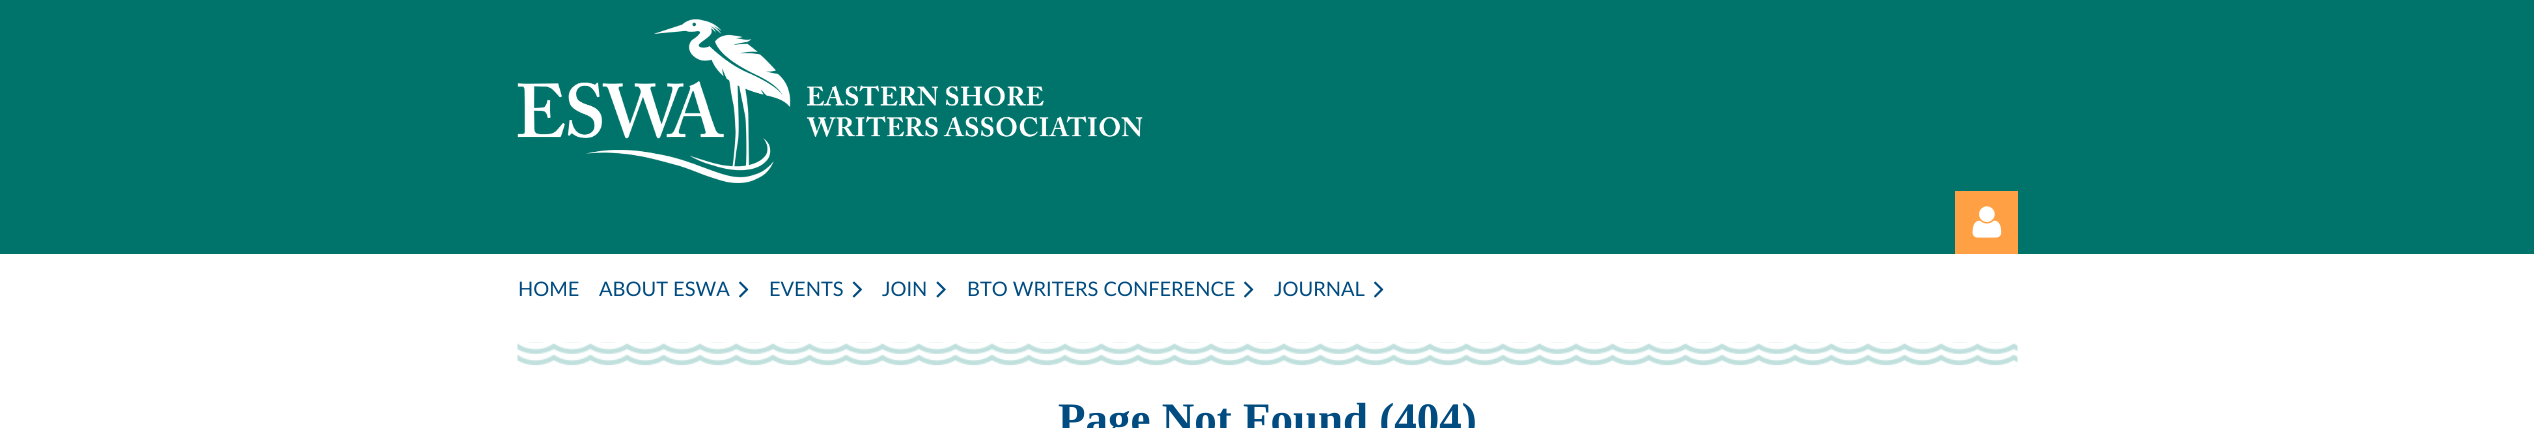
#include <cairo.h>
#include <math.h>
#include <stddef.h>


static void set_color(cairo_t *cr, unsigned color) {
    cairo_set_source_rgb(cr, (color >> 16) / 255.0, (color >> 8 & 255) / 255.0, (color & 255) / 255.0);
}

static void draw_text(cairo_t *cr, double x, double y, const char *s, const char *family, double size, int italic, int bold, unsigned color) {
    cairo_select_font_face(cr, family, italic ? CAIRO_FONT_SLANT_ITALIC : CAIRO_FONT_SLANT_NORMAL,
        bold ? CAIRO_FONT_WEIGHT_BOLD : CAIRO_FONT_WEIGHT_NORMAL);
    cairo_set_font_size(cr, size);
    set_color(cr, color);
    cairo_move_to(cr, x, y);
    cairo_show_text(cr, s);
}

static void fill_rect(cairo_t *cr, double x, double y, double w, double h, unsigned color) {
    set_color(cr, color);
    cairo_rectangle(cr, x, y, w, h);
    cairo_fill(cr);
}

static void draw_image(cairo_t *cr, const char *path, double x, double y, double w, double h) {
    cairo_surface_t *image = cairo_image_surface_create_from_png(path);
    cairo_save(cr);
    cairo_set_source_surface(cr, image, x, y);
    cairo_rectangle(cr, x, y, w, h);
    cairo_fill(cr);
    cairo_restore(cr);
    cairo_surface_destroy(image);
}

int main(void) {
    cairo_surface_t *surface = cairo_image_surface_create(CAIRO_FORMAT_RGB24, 2534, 428);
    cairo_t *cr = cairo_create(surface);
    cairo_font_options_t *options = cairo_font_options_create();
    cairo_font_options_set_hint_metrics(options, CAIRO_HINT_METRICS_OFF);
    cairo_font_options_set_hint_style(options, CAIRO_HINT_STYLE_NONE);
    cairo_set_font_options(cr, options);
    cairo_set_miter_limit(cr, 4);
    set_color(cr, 0xFFFFFF);
    cairo_paint(cr);
    fill_rect(cr, 0, 0, 2534, 254, 0x00746B);
    draw_image(cr, "assets/img1.png", 517, 19, 626, 164);
    fill_rect(cr, 1955, 191, 63, 63, 0xFFA045);
    draw_image(cr, "assets/img2.png", 1972, 206, 30, 32);
    draw_text(cr, 518, 296, "HOME", "Lato", 20, 0, 0, 0x004B80);
    draw_text(cr, 599, 296, "ABOUT ESWA", "Lato", 20, 0, 0, 0x004B80);
    draw_image(cr, "assets/img3.png", 739, 281, 10, 17);
    draw_text(cr, 769, 296, "EVENTS", "Lato", 20, 0, 0, 0x004B80);
    draw_image(cr, "assets/img4.png", 852, 281, 10, 17);
    draw_text(cr, 882, 296, "JOIN", "Lato", 20, 0, 0, 0x004B80);
    draw_image(cr, "assets/img5.png", 936, 281, 10, 17);
    draw_text(cr, 967, 296, "BTO WRITERS CONFERENCE", "Lato", 20, 0, 0, 0x004B80);
    draw_image(cr, "assets/img3.png", 1244, 281, 10, 17);
    draw_text(cr, 1274, 296, "JOURNAL", "Lato", 20, 0, 0, 0x004B80);
    draw_image(cr, "assets/img3.png", 1374, 281, 10, 17);
    draw_image(cr, "assets/img6.png", 517, 342, 1501, 25);
    draw_text(cr, 1058, 434, "Page Not Found (404)", "Liberation Serif", 45, 0, 1, 0x004B80);
    cairo_surface_write_to_png(surface, "output.png");
    cairo_font_options_destroy(options);
    cairo_destroy(cr);
    cairo_surface_destroy(surface);
    return 0;
}
